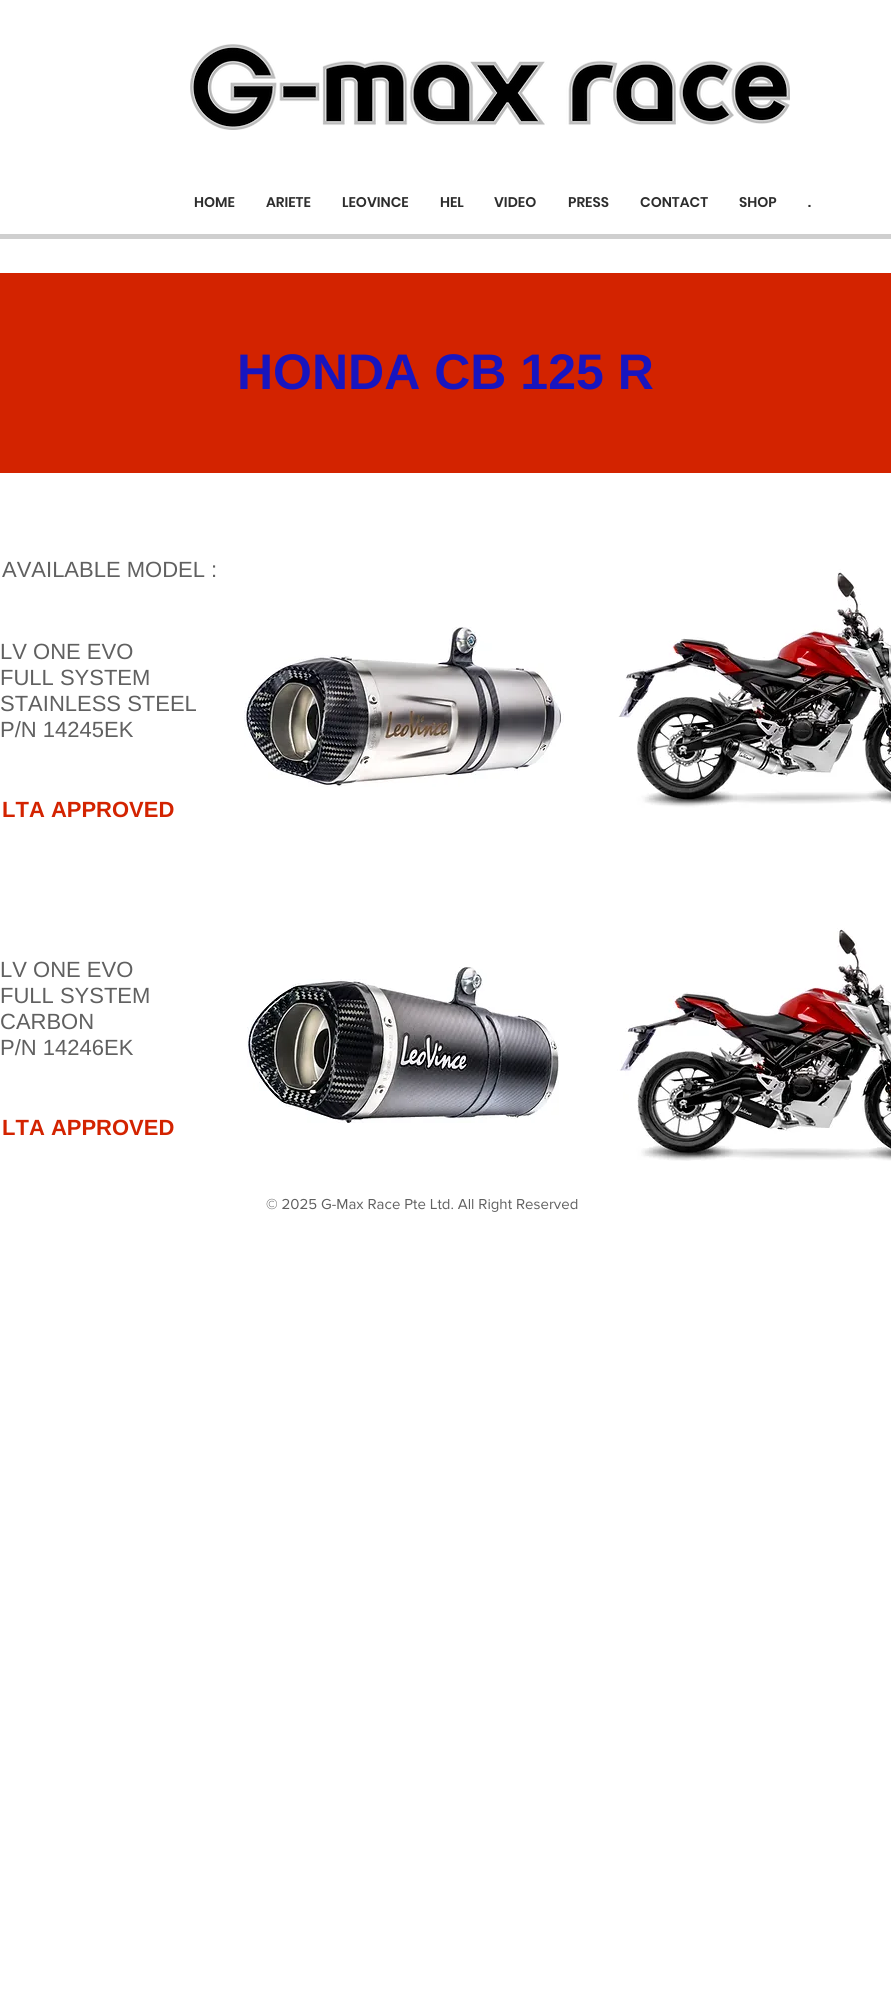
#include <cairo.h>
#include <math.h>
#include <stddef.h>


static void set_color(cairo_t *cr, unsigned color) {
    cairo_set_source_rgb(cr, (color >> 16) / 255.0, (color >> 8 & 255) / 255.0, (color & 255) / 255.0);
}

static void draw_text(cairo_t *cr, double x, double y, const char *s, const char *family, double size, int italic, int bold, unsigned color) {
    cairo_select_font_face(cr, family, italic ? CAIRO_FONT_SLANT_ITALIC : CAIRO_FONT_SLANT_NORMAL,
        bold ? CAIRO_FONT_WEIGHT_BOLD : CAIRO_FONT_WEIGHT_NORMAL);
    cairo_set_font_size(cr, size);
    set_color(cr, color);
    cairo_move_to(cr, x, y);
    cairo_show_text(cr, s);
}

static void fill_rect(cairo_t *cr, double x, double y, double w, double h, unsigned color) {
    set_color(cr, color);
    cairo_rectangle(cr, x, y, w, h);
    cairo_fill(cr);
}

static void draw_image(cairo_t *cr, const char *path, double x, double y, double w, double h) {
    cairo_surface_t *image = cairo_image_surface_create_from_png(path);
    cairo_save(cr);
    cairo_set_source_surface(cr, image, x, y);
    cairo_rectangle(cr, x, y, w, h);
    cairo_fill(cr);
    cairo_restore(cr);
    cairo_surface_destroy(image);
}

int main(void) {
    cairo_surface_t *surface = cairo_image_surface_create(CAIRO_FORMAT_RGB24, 891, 2003);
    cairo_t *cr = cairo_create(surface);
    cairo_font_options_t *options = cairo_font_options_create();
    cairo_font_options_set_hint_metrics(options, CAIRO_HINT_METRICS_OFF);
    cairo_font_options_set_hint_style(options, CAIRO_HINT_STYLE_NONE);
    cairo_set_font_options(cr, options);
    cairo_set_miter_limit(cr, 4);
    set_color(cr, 0xFFFFFF);
    cairo_paint(cr);
    draw_image(cr, "assets/img1.png", 190, 44, 600, 86);
    fill_rect(cr, 0, 234, 891, 5, 0xCFCFCF);
    draw_text(cr, 194, 207, "HOME", "Poppins SemiBold", 14, 0, 0, 0x2D2D2D);
    draw_text(cr, 266, 207, "ARIETE", "Poppins SemiBold", 14, 0, 0, 0x2D2D2D);
    draw_text(cr, 342, 207, "LEOVINCE", "Poppins SemiBold", 14, 0, 0, 0x2D2D2D);
    draw_text(cr, 440, 207, "HEL", "Poppins SemiBold", 14, 0, 0, 0x2D2D2D);
    draw_text(cr, 494, 207, "VIDEO", "Poppins SemiBold", 14, 0, 0, 0x2D2D2D);
    draw_text(cr, 568, 207, "PRESS", "Poppins SemiBold", 14, 0, 0, 0x2D2D2D);
    draw_text(cr, 640, 207, "CONTACT", "Poppins SemiBold", 14, 0, 0, 0x2D2D2D);
    draw_text(cr, 739, 207, "SHOP", "Poppins SemiBold", 14, 0, 0, 0x2D2D2D);
    draw_text(cr, 808, 207, ".", "Poppins SemiBold", 14, 0, 0, 0x2D2D2D);
    fill_rect(cr, 0, 273, 891, 200, 0xD32300);
    draw_text(cr, 237, 389, "HONDA CB 125 R", "Liberation Sans", 50, 0, 1, 0x1815BF);
    draw_text(cr, 2, 577, "AVAILABLE MODEL :", "Liberation Sans", 22, 0, 0, 0x606060);
    draw_image(cr, "assets/img2.png", 244, 627, 320, 160);
    draw_image(cr, "assets/img3.png", 618, 569, 273, 239);
    draw_text(cr, 0, 659, "LV ONE EVO", "Liberation Sans", 22, 0, 0, 0x606060);
    draw_text(cr, 0, 685, "FULL SYSTEM", "Liberation Sans", 22, 0, 0, 0x606060);
    draw_text(cr, 0, 711, "STAINLESS STEEL", "Liberation Sans", 22, 0, 0, 0x606060);
    draw_text(cr, 0, 737, "P/N 14245EK", "Liberation Sans", 22, 0, 0, 0x606060);
    draw_text(cr, 2, 817, "LTA APPROVED", "Liberation Sans", 22, 0, 1, 0xD32300);
    draw_text(cr, 0, 977, "LV ONE EVO", "Liberation Sans", 22, 0, 0, 0x606060);
    draw_text(cr, 0, 1003, "FULL SYSTEM", "Liberation Sans", 22, 0, 0, 0x606060);
    draw_text(cr, 0, 1029, "CARBON", "Liberation Sans", 22, 0, 0, 0x606060);
    draw_text(cr, 0, 1055, "P/N 14246EK", "Liberation Sans", 22, 0, 0, 0x606060);
    draw_image(cr, "assets/img4.png", 247, 967, 312, 156);
    draw_image(cr, "assets/img5.png", 617, 928, 274, 233);
    draw_text(cr, 2, 1135, "LTA APPROVED", "Liberation Sans", 22, 0, 1, 0xD32300);
    draw_text(cr, 266, 1209, "© 2025 G-Max Race Pte Ltd. All Right Reserved", "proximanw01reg", 15, 0, 0, 0x606060);
    cairo_surface_write_to_png(surface, "output.png");
    cairo_font_options_destroy(options);
    cairo_destroy(cr);
    cairo_surface_destroy(surface);
    return 0;
}
